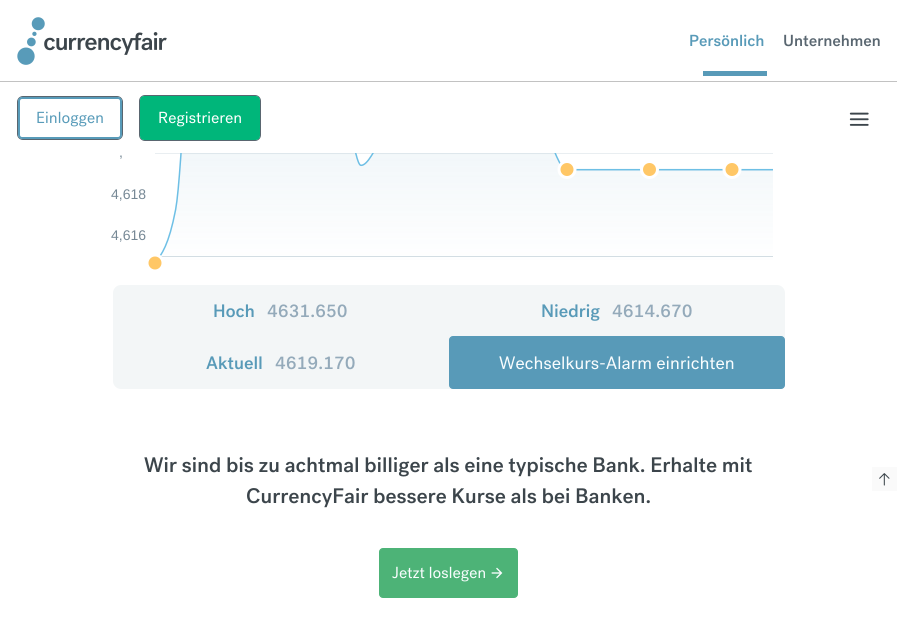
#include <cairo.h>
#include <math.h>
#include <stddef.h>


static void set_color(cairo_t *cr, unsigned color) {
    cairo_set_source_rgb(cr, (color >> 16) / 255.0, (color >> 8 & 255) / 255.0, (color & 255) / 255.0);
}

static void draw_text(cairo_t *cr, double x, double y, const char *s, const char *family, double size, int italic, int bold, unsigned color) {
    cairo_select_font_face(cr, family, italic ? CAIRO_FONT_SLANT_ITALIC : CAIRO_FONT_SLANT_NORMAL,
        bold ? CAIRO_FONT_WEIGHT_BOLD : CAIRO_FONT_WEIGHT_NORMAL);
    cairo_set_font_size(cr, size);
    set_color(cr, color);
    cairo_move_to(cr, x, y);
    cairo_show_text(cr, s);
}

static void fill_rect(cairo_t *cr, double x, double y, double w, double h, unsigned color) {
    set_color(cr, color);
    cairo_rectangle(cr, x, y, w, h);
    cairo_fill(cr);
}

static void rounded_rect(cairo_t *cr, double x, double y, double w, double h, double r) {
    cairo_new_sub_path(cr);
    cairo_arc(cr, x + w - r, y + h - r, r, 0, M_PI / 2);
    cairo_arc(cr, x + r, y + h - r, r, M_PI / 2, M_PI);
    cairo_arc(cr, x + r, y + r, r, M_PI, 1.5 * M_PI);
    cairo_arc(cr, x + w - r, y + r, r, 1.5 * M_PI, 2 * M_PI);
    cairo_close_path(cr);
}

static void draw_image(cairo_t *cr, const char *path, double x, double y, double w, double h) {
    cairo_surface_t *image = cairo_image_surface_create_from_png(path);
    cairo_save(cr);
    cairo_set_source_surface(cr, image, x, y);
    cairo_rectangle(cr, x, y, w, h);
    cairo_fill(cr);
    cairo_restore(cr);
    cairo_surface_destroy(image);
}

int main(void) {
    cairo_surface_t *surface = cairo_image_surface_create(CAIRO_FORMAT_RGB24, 897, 622);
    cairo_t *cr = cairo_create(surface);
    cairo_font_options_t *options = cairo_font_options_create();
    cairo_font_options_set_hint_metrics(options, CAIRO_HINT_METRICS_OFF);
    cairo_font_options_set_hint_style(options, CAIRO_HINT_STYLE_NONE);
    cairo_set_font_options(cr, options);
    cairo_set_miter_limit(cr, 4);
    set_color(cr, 0xFFFFFF);
    cairo_paint(cr);
    fill_rect(cr, 0, 81, 897, 1, 0xC2C2C2);
    draw_image(cr, "assets/img1.png", 17, 17, 150, 48);
    draw_image(cr, "assets/img2.png", 690, 34, 74, 13);
    fill_rect(cr, 703, 71, 64, 5, 0x589AB8);
    draw_image(cr, "assets/img3.png", 784, 34, 96, 13);
    rounded_rect(cr, 17.5, 96.5, 105, 43, 5.5);
    set_color(cr, 0x596670);
    cairo_set_line_width(cr, 1);
    cairo_stroke(cr);
    rounded_rect(cr, 19, 98, 102, 40, 3);
    set_color(cr, 0x589BB9);
    cairo_set_line_width(cr, 2);
    cairo_stroke(cr);
    draw_image(cr, "assets/img4.png", 37, 111, 66, 16);
    rounded_rect(cr, 139.5, 95.5, 121, 45, 5.5);
    set_color(cr, 0x596670);
    cairo_set_line_width(cr, 1);
    cairo_stroke(cr);
    set_color(cr, 0x00B67A);
    rounded_rect(cr, 141, 97, 118, 42, 3);
    cairo_fill_preserve(cr);
    cairo_set_line_width(cr, 2);
    cairo_stroke(cr);
    draw_image(cr, "assets/img5.png", 159, 111, 82, 16);
    draw_image(cr, "assets/img6.png", 849, 112, 20, 14);
    draw_image(cr, "assets/img7.png", 148, 153, 625, 117);
    draw_text(cr, 119, 157, ",", "Liberation Sans", 14, 0, 0, 0x768895);
    draw_text(cr, 111, 199, "4,618", "Liberation Sans", 14, 0, 0, 0x768895);
    draw_text(cr, 111, 240, "4,616", "Liberation Sans", 14, 0, 0, 0x768895);
    set_color(cr, 0xF3F6F7);
    rounded_rect(cr, 113, 285, 672, 104, 8);
    cairo_fill(cr);
    draw_image(cr, "assets/img8.png", 214, 304, 40, 14);
    draw_image(cr, "assets/img9.png", 267, 304, 80, 14);
    draw_image(cr, "assets/img10.png", 542, 304, 58, 17);
    draw_image(cr, "assets/img11.png", 612, 304, 80, 14);
    draw_image(cr, "assets/img12.png", 206, 356, 56, 14);
    draw_image(cr, "assets/img13.png", 275, 356, 80, 14);
    set_color(cr, 0x589AB8);
    rounded_rect(cr, 449.5, 336.5, 335, 52, 3.5);
    cairo_fill_preserve(cr);
    cairo_set_line_width(cr, 1);
    cairo_stroke(cr);
    draw_image(cr, "assets/img14.png", 499, 356, 235, 14);
    draw_image(cr, "assets/img15.png", 144, 457, 608, 20);
    draw_image(cr, "assets/img16.png", 247, 488, 403, 20);
    set_color(cr, 0x4DB377);
    rounded_rect(cr, 379.5, 548.5, 138, 49, 3.5);
    cairo_fill_preserve(cr);
    cairo_stroke(cr);
    draw_image(cr, "assets/img17.png", 392, 566, 93, 16);
    draw_image(cr, "assets/img18.png", 491, 567, 12, 12);
    fill_rect(cr, 872, 467, 25, 24, 0xFAFAFA);
    draw_image(cr, "assets/img19.png", 879, 473, 11, 13);
    cairo_surface_write_to_png(surface, "output.png");
    cairo_font_options_destroy(options);
    cairo_destroy(cr);
    cairo_surface_destroy(surface);
    return 0;
}
